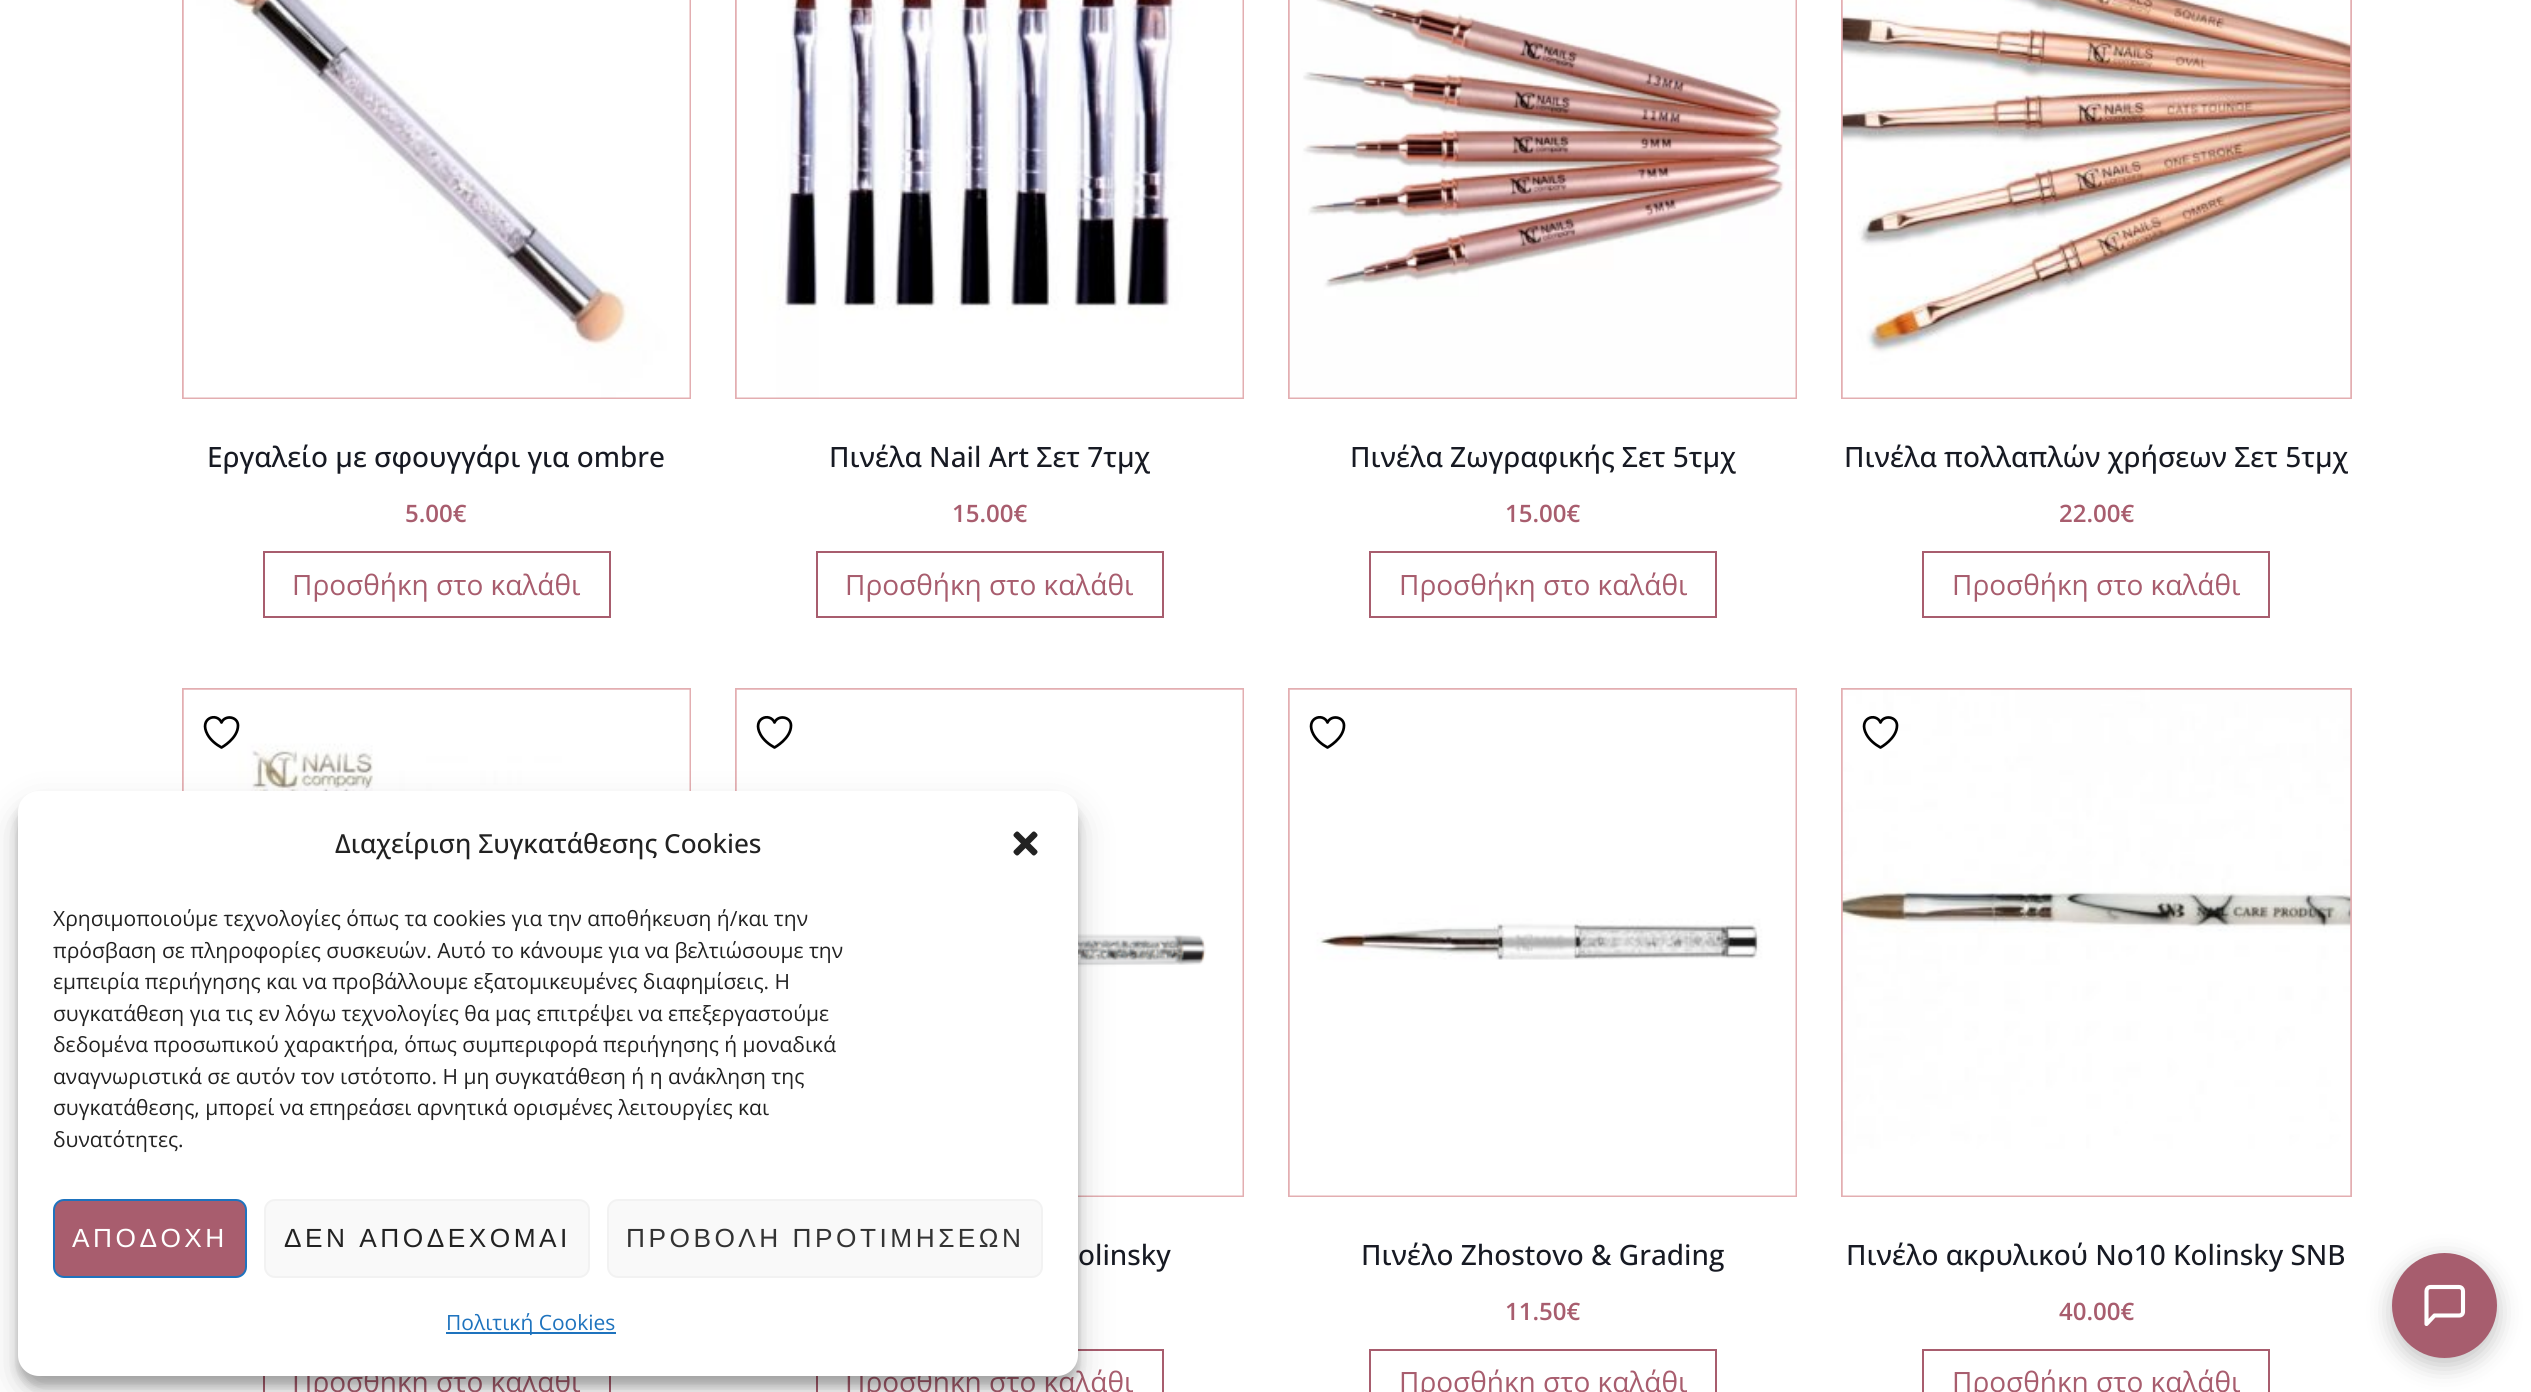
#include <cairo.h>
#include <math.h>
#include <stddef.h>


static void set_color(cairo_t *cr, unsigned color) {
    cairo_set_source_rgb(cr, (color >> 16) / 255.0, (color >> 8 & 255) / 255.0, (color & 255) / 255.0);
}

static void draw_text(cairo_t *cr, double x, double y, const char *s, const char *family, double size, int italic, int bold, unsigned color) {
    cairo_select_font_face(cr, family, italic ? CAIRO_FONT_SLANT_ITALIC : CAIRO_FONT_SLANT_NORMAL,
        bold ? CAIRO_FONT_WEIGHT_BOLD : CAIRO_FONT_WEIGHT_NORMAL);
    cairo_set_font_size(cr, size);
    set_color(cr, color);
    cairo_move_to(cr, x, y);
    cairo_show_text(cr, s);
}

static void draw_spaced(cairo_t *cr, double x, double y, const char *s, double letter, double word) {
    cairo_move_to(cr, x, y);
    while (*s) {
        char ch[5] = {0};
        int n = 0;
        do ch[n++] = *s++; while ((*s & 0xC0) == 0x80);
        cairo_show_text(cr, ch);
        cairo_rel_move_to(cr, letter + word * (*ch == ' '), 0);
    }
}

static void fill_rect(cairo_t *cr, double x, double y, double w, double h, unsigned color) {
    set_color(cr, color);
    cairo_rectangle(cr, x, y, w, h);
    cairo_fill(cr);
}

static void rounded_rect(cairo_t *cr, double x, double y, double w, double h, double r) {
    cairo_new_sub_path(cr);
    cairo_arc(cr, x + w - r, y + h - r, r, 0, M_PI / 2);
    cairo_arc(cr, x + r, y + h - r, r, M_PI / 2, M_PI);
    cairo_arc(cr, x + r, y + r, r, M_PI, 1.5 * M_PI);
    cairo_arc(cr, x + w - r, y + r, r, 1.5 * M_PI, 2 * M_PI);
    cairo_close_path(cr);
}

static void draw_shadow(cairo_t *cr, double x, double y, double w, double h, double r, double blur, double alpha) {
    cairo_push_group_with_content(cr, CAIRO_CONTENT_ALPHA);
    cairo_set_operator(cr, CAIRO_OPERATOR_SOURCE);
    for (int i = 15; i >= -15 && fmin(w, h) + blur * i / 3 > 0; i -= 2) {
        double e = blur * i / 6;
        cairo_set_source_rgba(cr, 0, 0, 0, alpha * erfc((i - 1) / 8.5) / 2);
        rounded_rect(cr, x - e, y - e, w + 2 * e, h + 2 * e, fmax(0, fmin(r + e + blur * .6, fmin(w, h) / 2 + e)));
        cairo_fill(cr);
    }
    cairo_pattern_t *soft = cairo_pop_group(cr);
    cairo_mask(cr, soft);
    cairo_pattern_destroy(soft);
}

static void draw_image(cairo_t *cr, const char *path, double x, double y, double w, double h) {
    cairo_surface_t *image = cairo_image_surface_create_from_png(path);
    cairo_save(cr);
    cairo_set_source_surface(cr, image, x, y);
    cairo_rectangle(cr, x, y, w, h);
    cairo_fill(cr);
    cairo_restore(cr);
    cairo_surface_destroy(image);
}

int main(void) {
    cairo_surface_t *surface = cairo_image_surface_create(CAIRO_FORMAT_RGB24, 2531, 1392);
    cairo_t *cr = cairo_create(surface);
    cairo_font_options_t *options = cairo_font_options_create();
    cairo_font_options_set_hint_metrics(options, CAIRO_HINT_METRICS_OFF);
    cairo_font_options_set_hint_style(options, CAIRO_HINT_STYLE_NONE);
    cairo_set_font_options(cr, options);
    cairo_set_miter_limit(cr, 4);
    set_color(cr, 0xFFFFFF);
    cairo_paint(cr);
    cairo_rectangle(cr, 183, -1, 507, 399);
    set_color(cr, 0xE3AEB1);
    cairo_stroke(cr);
    draw_image(cr, "assets/img1.png", 183, 0, 507, 398);
    draw_text(cr, 207, 467, "Εργαλείο με σφουγγάρι για ombre", "Open Sans Medium", 28, 0, 0, 0x171A23);
    draw_text(cr, 405, 522, "5.00€", "Open Sans SemiBold", 24, 0, 0, 0xA85D6E);
    cairo_rectangle(cr, 264, 552, 346, 65);
    cairo_stroke(cr);
    draw_text(cr, 292, 595, "Προσθήκη στο καλάθι", "Open Sans", 28, 0, 0, 0xA85D6E);
    cairo_rectangle(cr, 736, -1, 507, 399);
    set_color(cr, 0xE3AEB1);
    cairo_stroke(cr);
    draw_image(cr, "assets/img2.png", 736, 0, 507, 398);
    draw_text(cr, 829, 467, "Πινέλα Nail Art Σετ 7τμχ", "Open Sans Medium", 28, 0, 0, 0x171A23);
    draw_text(cr, 952, 522, "15.00€", "Open Sans SemiBold", 24, 0, 0, 0xA85D6E);
    cairo_rectangle(cr, 817, 552, 346, 65);
    cairo_stroke(cr);
    draw_text(cr, 845, 595, "Προσθήκη στο καλάθι", "Open Sans", 28, 0, 0, 0xA85D6E);
    cairo_rectangle(cr, 1289, -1, 507, 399);
    set_color(cr, 0xE3AEB1);
    cairo_stroke(cr);
    draw_image(cr, "assets/img3.png", 1289, 0, 507, 398);
    draw_text(cr, 1350, 467, "Πινέλα Ζωγραφικής Σετ 5τμχ", "Open Sans Medium", 28, 0, 0, 0x171A23);
    draw_text(cr, 1505, 522, "15.00€", "Open Sans SemiBold", 24, 0, 0, 0xA85D6E);
    cairo_rectangle(cr, 1370, 552, 346, 65);
    cairo_stroke(cr);
    draw_text(cr, 1399, 595, "Προσθήκη στο καλάθι", "Open Sans", 28, 0, 0, 0xA85D6E);
    cairo_rectangle(cr, 1842, -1, 509, 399);
    set_color(cr, 0xE3AEB1);
    cairo_stroke(cr);
    draw_image(cr, "assets/img4.png", 1842, 0, 509, 398);
    draw_text(cr, 1844, 467, "Πινέλα πολλαπλών χρήσεων Σετ 5τμχ", "Open Sans Medium", 28, 0, 0, 0x171A23);
    draw_text(cr, 2059, 522, "22.00€", "Open Sans SemiBold", 24, 0, 0, 0xA85D6E);
    cairo_rectangle(cr, 1923, 552, 346, 65);
    cairo_stroke(cr);
    draw_text(cr, 1952, 595, "Προσθήκη στο καλάθι", "Open Sans", 28, 0, 0, 0xA85D6E);
    cairo_rectangle(cr, 183, 689, 507, 507);
    set_color(cr, 0xE3AEB1);
    cairo_stroke(cr);
    draw_image(cr, "assets/img5.png", 183, 689, 507, 102);
    cairo_new_path(cr);
    cairo_move_to(cr, 238, 725.5);
    cairo_curve_to(cr, 238, 716.5, 225, 714.5, 221.5, 722.5);
    cairo_curve_to(cr, 217, 712, 198.5, 718, 207.5, 734.5);
    cairo_curve_to(cr, 210.5, 740, 216, 744.5, 221.5, 747.5);
    cairo_curve_to(cr, 221.5, 747.5, 238, 738.5, 238, 725.5);
    cairo_close_path(cr);
    set_color(cr, 0x000000);
    cairo_set_line_width(cr, 2.7);
    cairo_set_line_cap(cr, CAIRO_LINE_CAP_ROUND);
    cairo_set_line_join(cr, CAIRO_LINE_JOIN_ROUND);
    cairo_stroke(cr);
    cairo_rectangle(cr, 264, 1350, 346, 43);
    set_color(cr, 0xA85D6E);
    cairo_set_line_width(cr, 2);
    cairo_set_line_cap(cr, CAIRO_LINE_CAP_BUTT);
    cairo_set_line_join(cr, CAIRO_LINE_JOIN_MITER);
    cairo_stroke(cr);
    draw_text(cr, 292, 1392, "Προσθήκη στο καλάθι", "Open Sans", 28, 0, 0, 0xA85D6E);
    cairo_rectangle(cr, 736, 689, 507, 507);
    set_color(cr, 0xE3AEB1);
    cairo_stroke(cr);
    draw_image(cr, "assets/img6.png", 736, 689, 507, 507);
    cairo_new_path(cr);
    cairo_move_to(cr, 791, 725.5);
    cairo_curve_to(cr, 791, 716.5, 778, 714.5, 774.5, 722.5);
    cairo_curve_to(cr, 770, 712, 751.5, 718, 760.5, 734.5);
    cairo_curve_to(cr, 763.5, 740, 769, 744.5, 774.5, 747.5);
    cairo_curve_to(cr, 774.5, 747.5, 791, 738.5, 791, 725.5);
    cairo_close_path(cr);
    set_color(cr, 0x000000);
    cairo_set_line_width(cr, 2.7);
    cairo_set_line_cap(cr, CAIRO_LINE_CAP_ROUND);
    cairo_set_line_join(cr, CAIRO_LINE_JOIN_ROUND);
    cairo_stroke(cr);
    draw_text(cr, 1078, 1265, "olinsky", "Open Sans Medium", 28, 0, 0, 0x171A23);
    cairo_rectangle(cr, 817, 1350, 346, 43);
    set_color(cr, 0xA85D6E);
    cairo_set_line_width(cr, 2);
    cairo_set_line_cap(cr, CAIRO_LINE_CAP_BUTT);
    cairo_set_line_join(cr, CAIRO_LINE_JOIN_MITER);
    cairo_stroke(cr);
    draw_text(cr, 845, 1392, "Προσθήκη στο καλάθι", "Open Sans", 28, 0, 0, 0xA85D6E);
    cairo_rectangle(cr, 1289, 689, 507, 507);
    set_color(cr, 0xE3AEB1);
    cairo_stroke(cr);
    draw_image(cr, "assets/img7.png", 1289, 689, 507, 507);
    cairo_new_path(cr);
    cairo_move_to(cr, 1344, 725.5);
    cairo_curve_to(cr, 1344, 716.5, 1331, 714.5, 1327.5, 722.5);
    cairo_curve_to(cr, 1323, 712, 1304.5, 718, 1313.5, 734.5);
    cairo_curve_to(cr, 1316.5, 740, 1322, 744.5, 1327.5, 747.5);
    cairo_curve_to(cr, 1327.5, 747.5, 1344, 738.5, 1344, 725.5);
    cairo_close_path(cr);
    set_color(cr, 0x000000);
    cairo_set_line_width(cr, 2.7);
    cairo_set_line_cap(cr, CAIRO_LINE_CAP_ROUND);
    cairo_set_line_join(cr, CAIRO_LINE_JOIN_ROUND);
    cairo_stroke(cr);
    draw_text(cr, 1361, 1265, "Πινέλο Zhostovo & Grading", "Open Sans Medium", 28, 0, 0, 0x171A23);
    draw_text(cr, 1505, 1320, "11.50€", "Open Sans SemiBold", 24, 0, 0, 0xA85D6E);
    cairo_rectangle(cr, 1370, 1350, 346, 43);
    cairo_set_line_width(cr, 2);
    cairo_set_line_cap(cr, CAIRO_LINE_CAP_BUTT);
    cairo_set_line_join(cr, CAIRO_LINE_JOIN_MITER);
    cairo_stroke(cr);
    draw_text(cr, 1399, 1392, "Προσθήκη στο καλάθι", "Open Sans", 28, 0, 0, 0xA85D6E);
    cairo_rectangle(cr, 1842, 689, 509, 507);
    set_color(cr, 0xE3AEB1);
    cairo_stroke(cr);
    draw_image(cr, "assets/img8.png", 1842, 689, 509, 507);
    cairo_new_path(cr);
    cairo_move_to(cr, 1897, 725.5);
    cairo_curve_to(cr, 1897, 716.5, 1884, 714.5, 1880.5, 722.5);
    cairo_curve_to(cr, 1876, 712, 1857.5, 718, 1866.5, 734.5);
    cairo_curve_to(cr, 1869.5, 740, 1875, 744.5, 1880.5, 747.5);
    cairo_curve_to(cr, 1880.5, 747.5, 1897, 738.5, 1897, 725.5);
    cairo_close_path(cr);
    set_color(cr, 0x000000);
    cairo_set_line_width(cr, 2.7);
    cairo_set_line_cap(cr, CAIRO_LINE_CAP_ROUND);
    cairo_set_line_join(cr, CAIRO_LINE_JOIN_ROUND);
    cairo_stroke(cr);
    draw_text(cr, 1846, 1265, "Πινέλο ακρυλικού Νο10 Kolinsky SNB", "Open Sans Medium", 28, 0, 0, 0x171A23);
    draw_text(cr, 2059, 1320, "40.00€", "Open Sans SemiBold", 24, 0, 0, 0xA85D6E);
    cairo_rectangle(cr, 1923, 1350, 346, 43);
    cairo_set_line_width(cr, 2);
    cairo_set_line_cap(cr, CAIRO_LINE_CAP_BUTT);
    cairo_set_line_join(cr, CAIRO_LINE_JOIN_MITER);
    cairo_stroke(cr);
    draw_text(cr, 1952, 1392, "Προσθήκη στο καλάθι", "Open Sans", 28, 0, 0, 0xA85D6E);
    set_color(cr, 0x000000);
    draw_shadow(cr, 18, 802, 1060, 584, 21, 5, 0.23);
    draw_shadow(cr, 18, 809, 1060, 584, 21, 17.5, 0.19);
    set_color(cr, 0xFFFFFF);
    rounded_rect(cr, 18, 791, 1060, 585, 21);
    cairo_fill(cr);
    draw_text(cr, 335, 853, "Διαχείριση Συγκατάθεσης Cookies", "Open Sans Medium", 26.25, 0, 0, 0x222222);
    draw_image(cr, "assets/img9.png", 1013, 831, 25, 25);
    draw_text(cr, 53, 926, "Χρησιμοποιούμε τεχνολογίες όπως τα cookies για την αποθήκευση ή/και την", "Open Sans", 21, 0, 0, 0x222222);
    draw_text(cr, 53, 958, "πρόσβαση σε πληροφορίες συσκευών. Αυτό το κάνουμε για να βελτιώσουμε την", "Open Sans", 21, 0, 0, 0x222222);
    draw_text(cr, 53, 989, "εμπειρία περιήγησης και να προβάλλουμε εξατομικευμένες διαφημίσεις. Η", "Open Sans", 21, 0, 0, 0x222222);
    draw_text(cr, 53, 1021, "συγκατάθεση για τις εν λόγω τεχνολογίες θα μας επιτρέψει να επεξεργαστούμε", "Open Sans", 21, 0, 0, 0x222222);
    draw_text(cr, 53, 1052, "δεδομένα προσωπικού χαρακτήρα, όπως συμπεριφορά περιήγησης ή μοναδικά", "Open Sans", 21, 0, 0, 0x222222);
    draw_text(cr, 53, 1084, "αναγνωριστικά σε αυτόν τον ιστότοπο. Η μη συγκατάθεση ή η ανάκληση της", "Open Sans", 21, 0, 0, 0x222222);
    draw_text(cr, 53, 1115, "συγκατάθεσης, μπορεί να επηρεάσει αρνητικά ορισμένες λειτουργίες και", "Open Sans", 21, 0, 0, 0x222222);
    draw_text(cr, 53, 1147, "δυνατότητες.", "Open Sans", 21, 0, 0, 0x222222);
    set_color(cr, 0xA85D6E);
    rounded_rect(cr, 54, 1200, 192, 77, 10);
    cairo_fill_preserve(cr);
    set_color(cr, 0x1E73BE);
    cairo_stroke(cr);
    cairo_select_font_face(cr, "Liberation Sans", CAIRO_FONT_SLANT_NORMAL, CAIRO_FONT_WEIGHT_NORMAL);
    cairo_set_font_size(cr, 26.25);
    set_color(cr, 0xFFFFFF);
    draw_spaced(cr, 72, 1247, "ΑΠΟΔΟΧΗ", 3.5, 0);
    set_color(cr, 0xF9F9F9);
    rounded_rect(cr, 265, 1200, 324, 77, 10);
    cairo_fill_preserve(cr);
    set_color(cr, 0xF2F2F2);
    cairo_stroke(cr);
    set_color(cr, 0x222222);
    draw_spaced(cr, 284, 1247, "ΔΕΝ ΑΠΟΔΕΧΟΜΑΙ", 3.5, 0);
    set_color(cr, 0xF9F9F9);
    rounded_rect(cr, 608, 1200, 434, 77, 10);
    cairo_fill_preserve(cr);
    set_color(cr, 0xF2F2F2);
    cairo_stroke(cr);
    set_color(cr, 0x333333);
    draw_spaced(cr, 626, 1247, "ΠΡΟΒΟΛΗ ΠΡΟΤΙΜΗΣΕΩΝ", 3.5, 0);
    fill_rect(cr, 446, 1332, 170, 2, 0x1E73BE);
    draw_text(cr, 446, 1330, "Πολιτική Cookies", "Open Sans", 21, 0, 0, 0x1E73BE);
    set_color(cr, 0x000000);
    draw_shadow(cr, 2392, 1260, 105, 105, 52.5, 12, 0.25);
    set_color(cr, 0xA75D6E);
    cairo_arc(cr, 2444.5, 1305.5, 52.5, 0, 2 * M_PI);
    cairo_fill(cr);
    cairo_new_path(cr);
    cairo_move_to(cr, 2463, 1311.5);
    cairo_curve_to(cr, 2463, 1314, 2461.5, 1315.5, 2459, 1315.5);
    cairo_line_to(cr, 2434.5, 1315.5);
    cairo_line_to(cr, 2426.5, 1324);
    cairo_line_to(cr, 2426.5, 1291);
    cairo_curve_to(cr, 2426.5, 1289, 2428, 1287, 2430.5, 1287);
    cairo_line_to(cr, 2459, 1287);
    cairo_curve_to(cr, 2461.5, 1287, 2463, 1289, 2463, 1291);
    cairo_close_path(cr);
    set_color(cr, 0xFFFFFF);
    cairo_set_line_width(cr, 4.1);
    cairo_set_line_cap(cr, CAIRO_LINE_CAP_ROUND);
    cairo_set_line_join(cr, CAIRO_LINE_JOIN_ROUND);
    cairo_stroke(cr);
    cairo_surface_write_to_png(surface, "output.png");
    cairo_font_options_destroy(options);
    cairo_destroy(cr);
    cairo_surface_destroy(surface);
    return 0;
}
